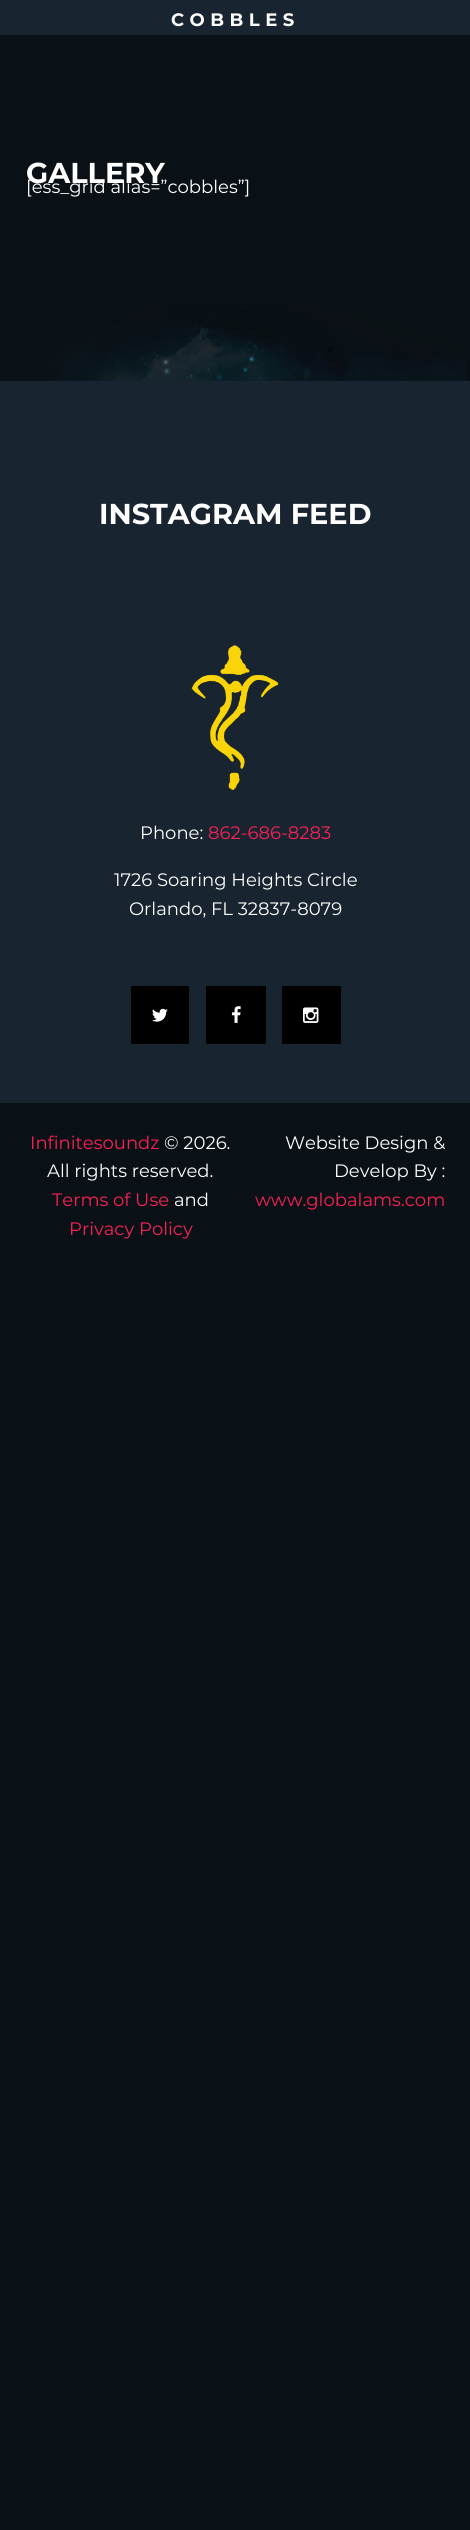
#include <cairo.h>
#include <math.h>
#include <stddef.h>


static void set_color(cairo_t *cr, unsigned color) {
    cairo_set_source_rgb(cr, (color >> 16) / 255.0, (color >> 8 & 255) / 255.0, (color & 255) / 255.0);
}

static void draw_text(cairo_t *cr, double x, double y, const char *s, const char *family, double size, int italic, int bold, unsigned color) {
    cairo_select_font_face(cr, family, italic ? CAIRO_FONT_SLANT_ITALIC : CAIRO_FONT_SLANT_NORMAL,
        bold ? CAIRO_FONT_WEIGHT_BOLD : CAIRO_FONT_WEIGHT_NORMAL);
    cairo_set_font_size(cr, size);
    set_color(cr, color);
    cairo_move_to(cr, x, y);
    cairo_show_text(cr, s);
}

static void draw_spaced(cairo_t *cr, double x, double y, const char *s, double letter, double word) {
    cairo_move_to(cr, x, y);
    while (*s) {
        char ch[5] = {0};
        int n = 0;
        do ch[n++] = *s++; while ((*s & 0xC0) == 0x80);
        cairo_show_text(cr, ch);
        cairo_rel_move_to(cr, letter + word * (*ch == ' '), 0);
    }
}

static void fill_rect(cairo_t *cr, double x, double y, double w, double h, unsigned color) {
    set_color(cr, color);
    cairo_rectangle(cr, x, y, w, h);
    cairo_fill(cr);
}

static void draw_image(cairo_t *cr, const char *path, double x, double y, double w, double h) {
    cairo_surface_t *image = cairo_image_surface_create_from_png(path);
    cairo_save(cr);
    cairo_set_source_surface(cr, image, x, y);
    cairo_rectangle(cr, x, y, w, h);
    cairo_fill(cr);
    cairo_restore(cr);
    cairo_surface_destroy(image);
}

int main(void) {
    cairo_surface_t *surface = cairo_image_surface_create(CAIRO_FORMAT_RGB24, 470, 2530);
    cairo_t *cr = cairo_create(surface);
    cairo_font_options_t *options = cairo_font_options_create();
    cairo_font_options_set_hint_metrics(options, CAIRO_HINT_METRICS_OFF);
    cairo_font_options_set_hint_style(options, CAIRO_HINT_STYLE_NONE);
    cairo_set_font_options(cr, options);
    cairo_set_miter_limit(cr, 4);
    set_color(cr, 0x0A1116);
    cairo_paint(cr);
    fill_rect(cr, 0, 0, 470, 35, 0x182530);
    cairo_select_font_face(cr, "Montserrat", CAIRO_FONT_SLANT_NORMAL, CAIRO_FONT_WEIGHT_BOLD);
    cairo_set_font_size(cr, 18);
    set_color(cr, 0xFFFFFF);
    draw_spaced(cr, 171, 26, "COBBLES", 5.5, 0);
    draw_image(cr, "assets/img1.png", 47, 307, 419, 74);
    draw_text(cr, 26, 183, "GALLERY", "Montserrat", 28.75, 0, 1, 0xFFFFFF);
    draw_text(cr, 26, 193, "[ess_grid alias=”cobbles”]", "Montserrat", 18, 0, 0, 0xFFFFFF);
    fill_rect(cr, 0, 381, 470, 722, 0x182530);
    draw_text(cr, 99, 524, "INSTAGRAM FEED", "Montserrat", 28.75, 0, 1, 0xFFFFFF);
    draw_image(cr, "assets/img2.png", 191, 645, 88, 145);
    draw_text(cr, 140, 839, "Phone:", "Montserrat", 18, 0, 0, 0xFFFFFF);
    draw_text(cr, 208, 839, "862-686-8283", "Montserrat", 18, 0, 0, 0xF92056);
    draw_text(cr, 114, 886, "1726 Soaring Heights Circle", "Montserrat", 18, 0, 0, 0xFFFFFF);
    draw_text(cr, 129, 915, "Orlando, FL 32837-8079", "Montserrat", 18, 0, 0, 0xFFFFFF);
    fill_rect(cr, 131, 986, 58, 58, 0x000000);
    draw_image(cr, "assets/img3.png", 152, 1008, 16, 14);
    fill_rect(cr, 206, 986, 60, 58, 0x000000);
    draw_image(cr, "assets/img4.png", 231, 1006, 10, 17);
    fill_rect(cr, 282, 986, 59, 58, 0x000000);
    draw_image(cr, "assets/img5.png", 303, 1007, 16, 16);
    draw_text(cr, 30, 1149, "Infinitesoundz", "Montserrat", 18, 0, 0, 0xF92056);
    draw_text(cr, 164, 1149, "© 2026.", "Montserrat", 18, 0, 0, 0xFFFFFF);
    draw_text(cr, 47, 1177, "All rights reserved.", "Montserrat", 18, 0, 0, 0xFFFFFF);
    draw_text(cr, 52, 1206, "Terms of Use", "Montserrat", 18, 0, 0, 0xF92056);
    draw_text(cr, 174, 1206, "and", "Montserrat", 18, 0, 0, 0xFFFFFF);
    draw_text(cr, 69, 1235, "Privacy Policy", "Montserrat", 18, 0, 0, 0xF92056);
    draw_text(cr, 285, 1149, "Website Design &", "Montserrat", 18, 0, 0, 0xFFFFFF);
    draw_text(cr, 334, 1177, "Develop By :", "Montserrat", 18, 0, 0, 0xFFFFFF);
    draw_text(cr, 255, 1206, "www.globalams.com", "Montserrat", 18, 0, 0, 0xF92056);
    cairo_surface_write_to_png(surface, "output.png");
    cairo_font_options_destroy(options);
    cairo_destroy(cr);
    cairo_surface_destroy(surface);
    return 0;
}
